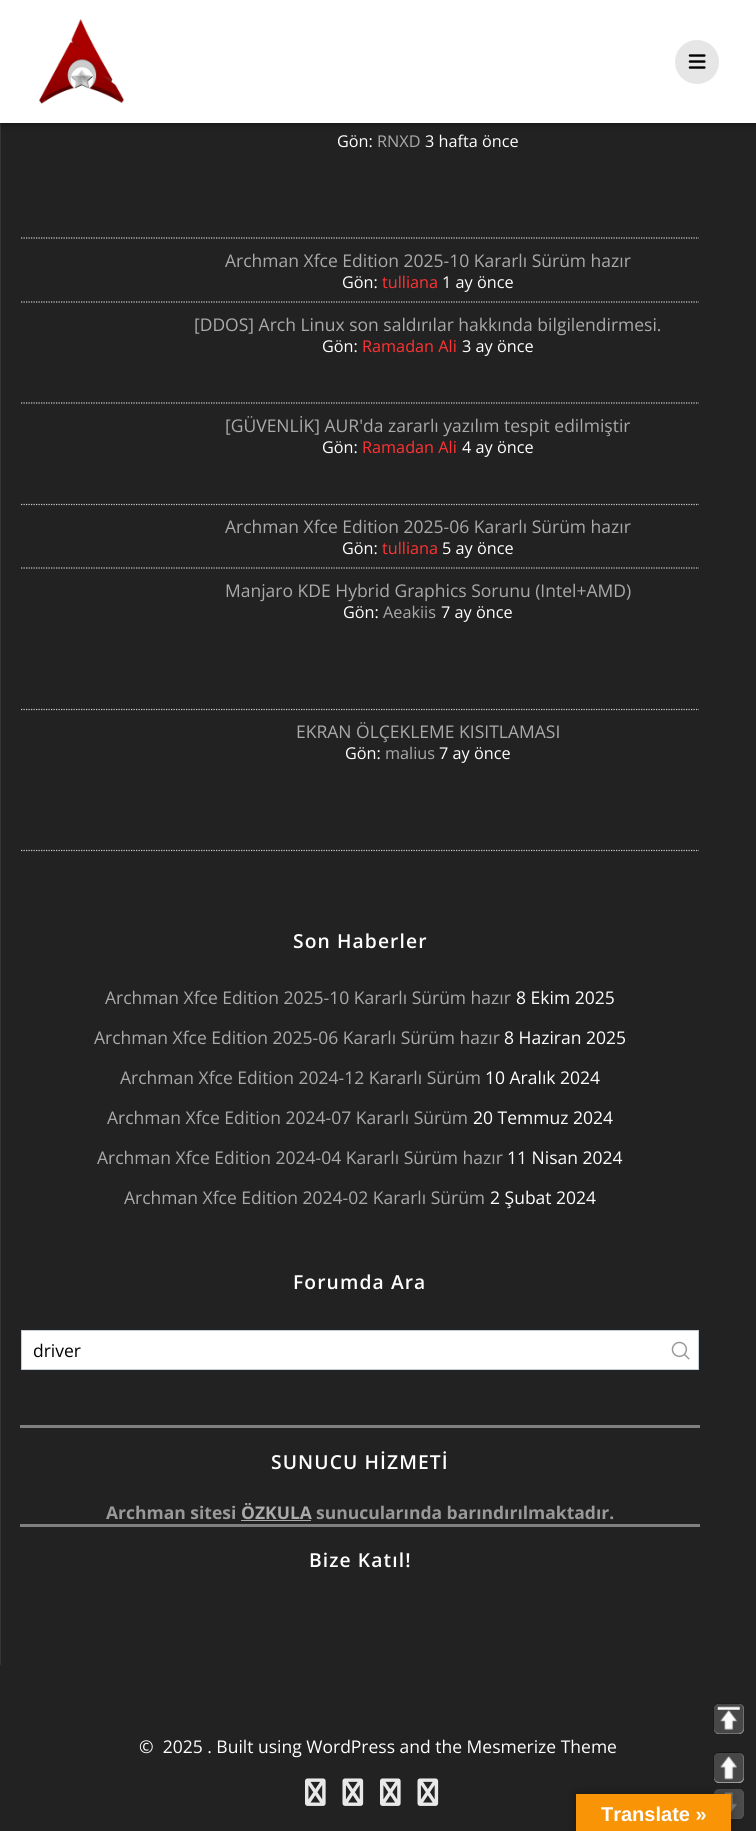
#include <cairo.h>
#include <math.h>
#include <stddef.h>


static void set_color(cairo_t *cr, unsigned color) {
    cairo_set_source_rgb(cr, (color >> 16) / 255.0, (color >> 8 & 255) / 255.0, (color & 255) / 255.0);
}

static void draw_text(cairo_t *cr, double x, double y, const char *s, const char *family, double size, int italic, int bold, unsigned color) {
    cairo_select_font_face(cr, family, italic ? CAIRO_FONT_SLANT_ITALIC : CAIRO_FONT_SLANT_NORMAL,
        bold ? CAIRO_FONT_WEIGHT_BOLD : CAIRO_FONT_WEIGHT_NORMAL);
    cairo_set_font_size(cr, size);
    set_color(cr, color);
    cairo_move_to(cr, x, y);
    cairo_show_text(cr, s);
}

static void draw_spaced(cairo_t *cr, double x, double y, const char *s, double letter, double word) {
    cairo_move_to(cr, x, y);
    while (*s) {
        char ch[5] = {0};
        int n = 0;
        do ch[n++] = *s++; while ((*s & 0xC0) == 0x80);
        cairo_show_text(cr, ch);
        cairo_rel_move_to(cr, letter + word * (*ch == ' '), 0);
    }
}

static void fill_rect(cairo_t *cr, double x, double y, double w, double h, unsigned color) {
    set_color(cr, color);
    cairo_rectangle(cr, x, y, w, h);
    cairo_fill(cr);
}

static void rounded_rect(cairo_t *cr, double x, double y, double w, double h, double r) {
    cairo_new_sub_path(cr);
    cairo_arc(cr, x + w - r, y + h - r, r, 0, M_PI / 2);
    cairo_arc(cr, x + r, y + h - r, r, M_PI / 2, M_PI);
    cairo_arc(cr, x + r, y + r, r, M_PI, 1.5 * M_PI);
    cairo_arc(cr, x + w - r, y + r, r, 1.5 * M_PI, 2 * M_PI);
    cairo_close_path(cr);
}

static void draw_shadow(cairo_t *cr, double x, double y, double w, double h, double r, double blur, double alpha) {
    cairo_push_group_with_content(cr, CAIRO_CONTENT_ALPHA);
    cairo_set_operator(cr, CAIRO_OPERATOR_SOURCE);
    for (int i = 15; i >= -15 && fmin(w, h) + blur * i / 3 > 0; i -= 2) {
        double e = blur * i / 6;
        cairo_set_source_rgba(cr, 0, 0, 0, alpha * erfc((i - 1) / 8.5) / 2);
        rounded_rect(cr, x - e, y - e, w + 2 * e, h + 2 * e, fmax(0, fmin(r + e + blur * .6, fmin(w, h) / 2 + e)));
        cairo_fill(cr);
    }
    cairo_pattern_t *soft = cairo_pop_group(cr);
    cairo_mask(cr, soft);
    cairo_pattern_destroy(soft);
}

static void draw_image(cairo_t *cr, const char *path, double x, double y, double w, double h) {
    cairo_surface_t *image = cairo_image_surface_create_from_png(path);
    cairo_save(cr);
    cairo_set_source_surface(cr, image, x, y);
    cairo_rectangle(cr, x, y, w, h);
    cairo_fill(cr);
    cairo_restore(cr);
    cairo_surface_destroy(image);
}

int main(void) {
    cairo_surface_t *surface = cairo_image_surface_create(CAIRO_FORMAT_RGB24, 756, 1831);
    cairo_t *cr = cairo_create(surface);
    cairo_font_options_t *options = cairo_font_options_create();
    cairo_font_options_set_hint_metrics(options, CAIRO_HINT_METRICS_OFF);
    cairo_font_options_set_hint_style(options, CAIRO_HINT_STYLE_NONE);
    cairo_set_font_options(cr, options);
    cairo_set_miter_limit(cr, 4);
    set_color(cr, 0x222222);
    cairo_paint(cr);
    fill_rect(cr, 0, 123, 1, 1542, 0x353535);
    set_color(cr, 0x000000);
    draw_shadow(cr, -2, -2, 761, 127, 0, 3, 0.33);
    fill_rect(cr, 0, 0, 756, 123, 0xFFFFFF);
    draw_image(cr, "assets/img1.png", 39, 19, 86, 85);
    set_color(cr, 0xE6E6E6);
    cairo_arc(cr, 697, 62, 22, 0, 2 * M_PI);
    cairo_fill(cr);
    draw_image(cr, "assets/img2.png", 688, 54, 18, 15);
    cairo_new_path(cr);
    cairo_move_to(cr, 21, 238);
    cairo_line_to(cr, 699, 238);
    set_color(cr, 0xCCCCCC);
    cairo_set_line_width(cr, 1.2);
    cairo_set_dash(cr, (double[]){1.25, 1.25}, 2, 0);
    cairo_stroke(cr);
    draw_text(cr, 337, 147, "Gön:", "Open Sans", 16.25, 0, 0, 0xFFFFFF);
    draw_text(cr, 377, 147, "RNXD", "Open Sans", 16.25, 0, 0, 0xAAAAAA);
    draw_text(cr, 425, 147, "3 hafta önce", "Open Sans", 16.25, 0, 0, 0xFFFFFF);
    cairo_new_path(cr);
    cairo_move_to(cr, 21, 302);
    cairo_line_to(cr, 699, 302);
    set_color(cr, 0xCCCCCC);
    cairo_stroke(cr);
    draw_text(cr, 225, 267, "Archman Xfce Edition 2025-10 Kararlı Sürüm hazır", "Open Sans", 17.5, 0, 0, 0xAAAAAA);
    draw_text(cr, 342, 288, "Gön:", "Open Sans", 16.25, 0, 0, 0xFFFFFF);
    draw_text(cr, 382, 288, "tulliana", "Open Sans", 16.25, 0, 0, 0xFF3333);
    draw_text(cr, 442, 288, "1 ay önce", "Open Sans", 16.25, 0, 0, 0xFFFFFF);
    cairo_new_path(cr);
    cairo_move_to(cr, 21, 403);
    cairo_line_to(cr, 699, 403);
    set_color(cr, 0xCCCCCC);
    cairo_stroke(cr);
    draw_text(cr, 194, 331, "[DDOS] Arch Linux son saldırılar hakkında bilgilendirmesi.", "Open Sans", 17.5, 0, 0, 0xAAAAAA);
    draw_text(cr, 322, 352, "Gön:", "Open Sans", 16.25, 0, 0, 0xFFFFFF);
    draw_text(cr, 362, 352, "Ramadan Ali", "Open Sans", 16.25, 0, 0, 0xFF3333);
    draw_text(cr, 462, 352, "3 ay önce", "Open Sans", 16.25, 0, 0, 0xFFFFFF);
    cairo_new_path(cr);
    cairo_move_to(cr, 21, 504.5);
    cairo_line_to(cr, 699, 504.5);
    set_color(cr, 0xCCCCCC);
    cairo_stroke(cr);
    draw_text(cr, 225, 432, "[GÜVENLİK] AUR'da zararlı yazılım tespit edilmiştir", "Open Sans", 17.5, 0, 0, 0xAAAAAA);
    draw_text(cr, 322, 453, "Gön:", "Open Sans", 16.25, 0, 0, 0xFFFFFF);
    draw_text(cr, 362, 453, "Ramadan Ali", "Open Sans", 16.25, 0, 0, 0xFF3333);
    draw_text(cr, 462, 453, "4 ay önce", "Open Sans", 16.25, 0, 0, 0xFFFFFF);
    cairo_new_path(cr);
    cairo_move_to(cr, 21, 568);
    cairo_line_to(cr, 699, 568);
    set_color(cr, 0xCCCCCC);
    cairo_stroke(cr);
    draw_text(cr, 225, 533, "Archman Xfce Edition 2025-06 Kararlı Sürüm hazır", "Open Sans", 17.5, 0, 0, 0xAAAAAA);
    draw_text(cr, 342, 554, "Gön:", "Open Sans", 16.25, 0, 0, 0xFFFFFF);
    draw_text(cr, 382, 554, "tulliana", "Open Sans", 16.25, 0, 0, 0xFF3333);
    draw_text(cr, 442, 554, "5 ay önce", "Open Sans", 16.25, 0, 0, 0xFFFFFF);
    cairo_new_path(cr);
    cairo_move_to(cr, 21, 709.5);
    cairo_line_to(cr, 699, 709.5);
    set_color(cr, 0xCCCCCC);
    cairo_stroke(cr);
    draw_text(cr, 225, 597, "Manjaro KDE Hybrid Graphics Sorunu (Intel+AMD)", "Open Sans", 17.5, 0, 0, 0xAAAAAA);
    draw_text(cr, 343, 618, "Gön:", "Open Sans", 16.25, 0, 0, 0xFFFFFF);
    draw_text(cr, 383, 618, "Aeakiis", "Open Sans", 16.25, 0, 0, 0xAAAAAA);
    draw_text(cr, 441, 618, "7 ay önce", "Open Sans", 16.25, 0, 0, 0xFFFFFF);
    cairo_new_path(cr);
    cairo_move_to(cr, 21, 850.5);
    cairo_line_to(cr, 699, 850.5);
    set_color(cr, 0xCCCCCC);
    cairo_stroke(cr);
    draw_text(cr, 296, 738, "EKRAN ÖLÇEKLEME KISITLAMASI", "Open Sans", 17.5, 0, 0, 0xAAAAAA);
    draw_text(cr, 345, 759, "Gön:", "Open Sans", 16.25, 0, 0, 0xFFFFFF);
    draw_text(cr, 385, 759, "malius", "Open Sans", 16.25, 0, 0, 0xAAAAAA);
    draw_text(cr, 439, 759, "7 ay önce", "Open Sans", 16.25, 0, 0, 0xFFFFFF);
    cairo_select_font_face(cr, "Open Sans SemiBold", CAIRO_FONT_SLANT_NORMAL, CAIRO_FONT_WEIGHT_NORMAL);
    cairo_set_font_size(cr, 19.25);
    draw_spaced(cr, 293, 948, "Son Haberler", 1.1, 0);
    draw_text(cr, 105, 1004, "Archman Xfce Edition 2025-10 Kararlı Sürüm hazır", "Open Sans", 17.5, 0, 0, 0xAAAAAA);
    draw_text(cr, 516, 1004, "8 Ekim 2025", "Open Sans", 17.5, 0, 0, 0xFFFFFF);
    draw_text(cr, 94, 1044, "Archman Xfce Edition 2025-06 Kararlı Sürüm hazır", "Open Sans", 17.5, 0, 0, 0xAAAAAA);
    draw_text(cr, 504, 1044, "8 Haziran 2025", "Open Sans", 17.5, 0, 0, 0xFFFFFF);
    draw_text(cr, 120, 1084, "Archman Xfce Edition 2024-12 Kararlı Sürüm", "Open Sans", 17.5, 0, 0, 0xAAAAAA);
    draw_text(cr, 485, 1084, "10 Aralık 2024", "Open Sans", 17.5, 0, 0, 0xFFFFFF);
    draw_text(cr, 107, 1124, "Archman Xfce Edition 2024-07 Kararlı Sürüm", "Open Sans", 17.5, 0, 0, 0xAAAAAA);
    draw_text(cr, 473, 1124, "20 Temmuz 2024", "Open Sans", 17.5, 0, 0, 0xFFFFFF);
    draw_text(cr, 97, 1164, "Archman Xfce Edition 2024-04 Kararlı Sürüm hazır", "Open Sans", 17.5, 0, 0, 0xAAAAAA);
    draw_text(cr, 507, 1164, "11 Nisan 2024", "Open Sans", 17.5, 0, 0, 0xFFFFFF);
    draw_text(cr, 124, 1204, "Archman Xfce Edition 2024-02 Kararlı Sürüm", "Open Sans", 17.5, 0, 0, 0xAAAAAA);
    draw_text(cr, 490, 1204, "2 Şubat 2024", "Open Sans", 17.5, 0, 0, 0xFFFFFF);
    cairo_select_font_face(cr, "Open Sans SemiBold", CAIRO_FONT_SLANT_NORMAL, CAIRO_FONT_WEIGHT_NORMAL);
    cairo_set_font_size(cr, 19.25);
    draw_spaced(cr, 293, 1289, "Forumda Ara", 1.1, 0);
    cairo_rectangle(cr, 21.5, 1330.5, 677, 39);
    cairo_fill_preserve(cr);
    set_color(cr, 0xC4CDD5);
    cairo_set_line_width(cr, 1);
    cairo_set_dash(cr, NULL, 0, 0);
    cairo_stroke(cr);
    draw_text(cr, 33, 1357, "driver", "Open Sans", 17.5, 0, 0, 0x000000);
    draw_image(cr, "assets/img3.png", 671, 1341, 19, 19);
    fill_rect(cr, 20, 1425, 680, 3, 0x808080);
    cairo_select_font_face(cr, "Open Sans SemiBold", CAIRO_FONT_SLANT_NORMAL, CAIRO_FONT_WEIGHT_NORMAL);
    cairo_set_font_size(cr, 19.25);
    set_color(cr, 0xFFFFFF);
    draw_spaced(cr, 271, 1469, "SUNUCU HİZMETİ", 1.1, 0);
    draw_text(cr, 106, 1519, "Archman sitesi", "Open Sans", 17.5, 0, 1, 0x999999);
    draw_text(cr, 241, 1519, "ÖZKULA", "Open Sans", 17.5, 0, 1, 0xAAAAAA);
    fill_rect(cr, 241, 1520, 70, 1, 0xAAAAAA);
    draw_text(cr, 316, 1519, "sunucularında barındırılmaktadır.", "Open Sans", 17.5, 0, 1, 0x999999);
    fill_rect(cr, 20, 1524, 680, 3, 0x808080);
    cairo_select_font_face(cr, "Open Sans SemiBold", CAIRO_FONT_SLANT_NORMAL, CAIRO_FONT_WEIGHT_NORMAL);
    cairo_set_font_size(cr, 19.25);
    set_color(cr, 0xFFFFFF);
    draw_spaced(cr, 309, 1567, "Bize Katıl!", 1.1, 0);
    draw_text(cr, 139, 1753, "©  2025 . Built using WordPress and the Mesmerize Theme", "Open Sans", 17.5, 0, 0, 0xFFFFFF);
    draw_image(cr, "assets/img4.png", 305, 1778, 21, 28);
    draw_image(cr, "assets/img5.png", 342, 1778, 22, 28);
    draw_image(cr, "assets/img4.png", 380, 1778, 21, 28);
    draw_image(cr, "assets/img5.png", 417, 1778, 22, 28);
    set_color(cr, 0xEFEFEF);
    rounded_rect(cr, 714, 1704, 30, 30, 5);
    cairo_fill(cr);
    draw_image(cr, "assets/img6.png", 713, 1703, 31, 31);
    rounded_rect(cr, 714, 1753, 30, 30, 5);
    cairo_fill(cr);
    draw_image(cr, "assets/img7.png", 713, 1752, 31, 31);
    set_color(cr, 0x606060);
    rounded_rect(cr, 714, 1789, 30, 30, 5);
    cairo_fill(cr);
    draw_image(cr, "assets/img8.png", 714, 1789, 30, 30);
    set_color(cr, 0x000000);
    draw_shadow(cr, 576, 1794, 155, 37, 0, 5.5, 0.3);
    fill_rect(cr, 576, 1794, 155, 37, 0xF89406);
    draw_text(cr, 601, 1821, "Translate »", "Liberation Sans", 20, 0, 1, 0xFFFFFF);
    cairo_surface_write_to_png(surface, "output.png");
    cairo_font_options_destroy(options);
    cairo_destroy(cr);
    cairo_surface_destroy(surface);
    return 0;
}
